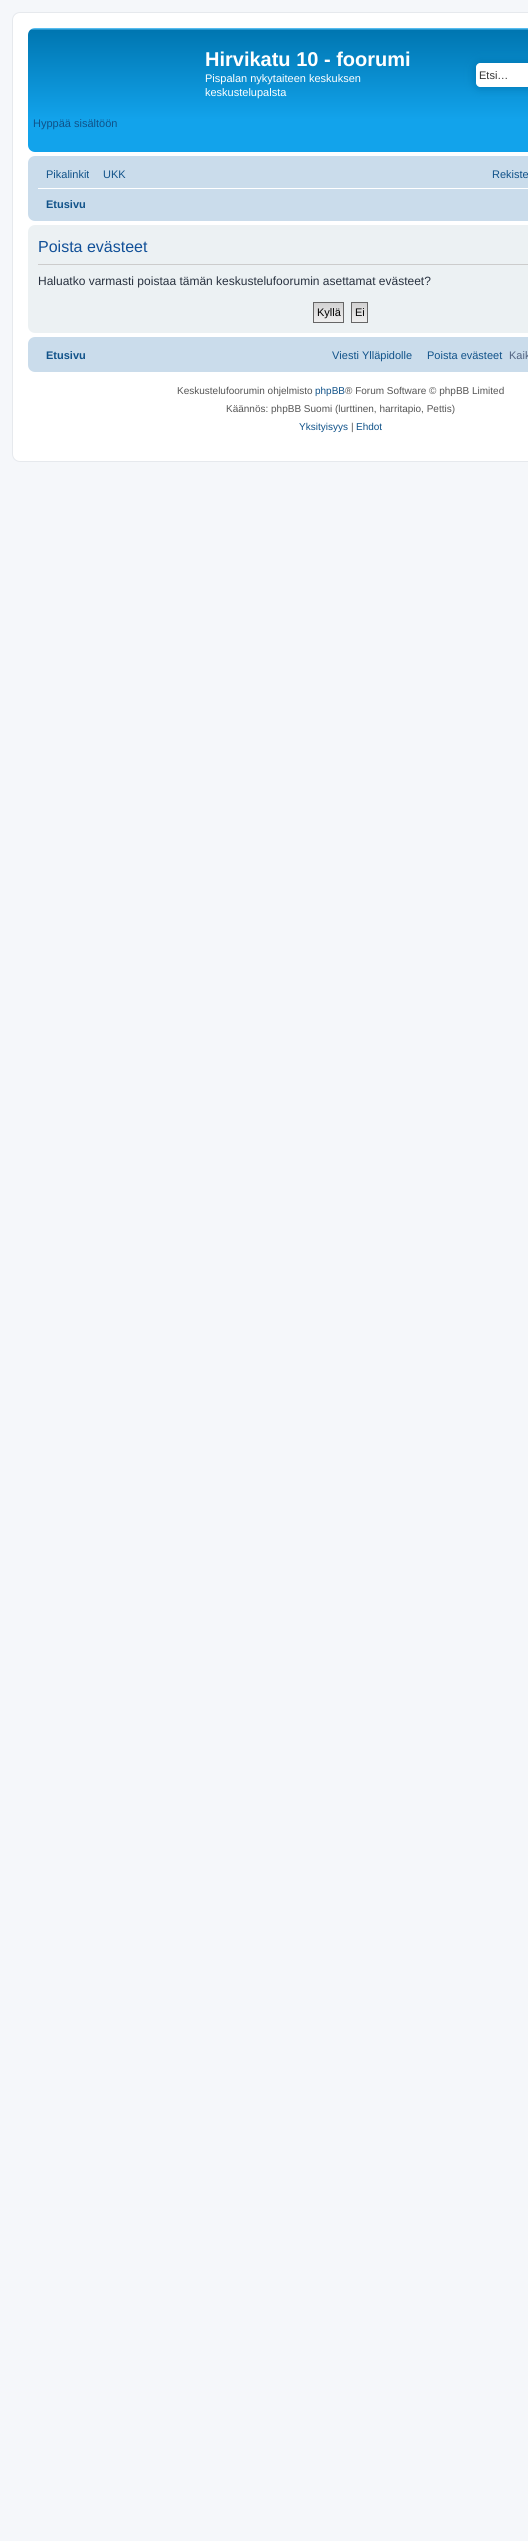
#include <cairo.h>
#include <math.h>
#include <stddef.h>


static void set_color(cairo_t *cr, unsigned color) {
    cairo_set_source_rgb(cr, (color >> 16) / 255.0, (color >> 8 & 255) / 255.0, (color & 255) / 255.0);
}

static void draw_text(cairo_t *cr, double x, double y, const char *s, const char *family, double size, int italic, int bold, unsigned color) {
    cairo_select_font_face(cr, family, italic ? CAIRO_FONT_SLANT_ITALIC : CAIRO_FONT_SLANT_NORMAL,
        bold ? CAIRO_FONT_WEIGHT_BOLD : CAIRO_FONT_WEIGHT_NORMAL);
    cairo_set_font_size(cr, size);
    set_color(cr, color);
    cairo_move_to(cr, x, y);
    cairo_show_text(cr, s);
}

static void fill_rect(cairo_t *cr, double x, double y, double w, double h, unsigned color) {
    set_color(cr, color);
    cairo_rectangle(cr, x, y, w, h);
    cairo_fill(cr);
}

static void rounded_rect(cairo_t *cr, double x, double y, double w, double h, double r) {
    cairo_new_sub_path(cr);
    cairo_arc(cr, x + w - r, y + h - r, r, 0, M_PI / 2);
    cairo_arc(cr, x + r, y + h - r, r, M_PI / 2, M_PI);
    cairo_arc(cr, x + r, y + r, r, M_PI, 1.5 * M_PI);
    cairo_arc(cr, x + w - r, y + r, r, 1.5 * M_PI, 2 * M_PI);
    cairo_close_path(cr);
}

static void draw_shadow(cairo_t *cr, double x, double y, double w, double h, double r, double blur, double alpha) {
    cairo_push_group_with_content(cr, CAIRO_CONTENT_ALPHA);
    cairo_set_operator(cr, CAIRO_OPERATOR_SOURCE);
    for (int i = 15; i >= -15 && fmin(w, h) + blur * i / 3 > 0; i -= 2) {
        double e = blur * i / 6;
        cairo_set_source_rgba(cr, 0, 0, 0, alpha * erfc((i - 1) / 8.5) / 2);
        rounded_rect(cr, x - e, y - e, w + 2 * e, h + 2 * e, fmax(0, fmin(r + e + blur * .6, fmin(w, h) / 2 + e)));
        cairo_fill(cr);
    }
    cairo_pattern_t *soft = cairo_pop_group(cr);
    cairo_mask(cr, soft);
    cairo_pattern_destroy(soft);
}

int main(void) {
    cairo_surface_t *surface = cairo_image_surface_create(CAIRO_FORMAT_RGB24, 528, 2541);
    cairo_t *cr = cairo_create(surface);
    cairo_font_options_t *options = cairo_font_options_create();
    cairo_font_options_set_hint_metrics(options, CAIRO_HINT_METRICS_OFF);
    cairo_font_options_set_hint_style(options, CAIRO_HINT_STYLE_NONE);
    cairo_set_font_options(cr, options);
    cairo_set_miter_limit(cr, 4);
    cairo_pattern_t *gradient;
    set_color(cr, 0xF5F7FA);
    cairo_paint(cr);
    set_color(cr, 0xFFFFFF);
    rounded_rect(cr, 12.5, 12.5, 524, 449, 7.5);
    cairo_fill_preserve(cr);
    set_color(cr, 0xE6E9ED);
    cairo_set_line_width(cr, 1);
    cairo_stroke(cr);
    gradient = cairo_pattern_create_linear(341, 28, 341, 152);
    cairo_pattern_add_color_stop_rgba(gradient, 0, 0.416, 0.808, 1, 1);
    cairo_pattern_add_color_stop_rgba(gradient, 0.02, 0, 0.463, 0.694, 1);
    cairo_pattern_add_color_stop_rgba(gradient, 0.74, 0.071, 0.639, 0.922, 1);
    cairo_pattern_add_color_stop_rgba(gradient, 1, 0.071, 0.639, 0.922, 1);
    cairo_set_source(cr, gradient);
    cairo_pattern_destroy(gradient);
    rounded_rect(cr, 28, 28, 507, 124, 7);
    cairo_fill(cr);
    draw_text(cr, 205, 66, "Hirvikatu 10 - foorumi", "Liberation Sans", 20, 0, 1, 0xFFFFFF);
    draw_text(cr, 205, 82, "Pispalan nykytaiteen keskuksen", "Liberation Sans", 11, 0, 0, 0xFFFFFF);
    draw_text(cr, 205, 96, "keskustelupalsta", "Liberation Sans", 11, 0, 0, 0xFFFFFF);
    draw_text(cr, 33, 127, "Hyppää sisältöön", "Liberation Sans", 11, 0, 0, 0x105289);
    set_color(cr, 0x0075B0);
    draw_shadow(cr, 476, 63, 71, 24, 4, 5, 1);
    set_color(cr, 0xFFFFFF);
    cairo_new_path(cr);
    cairo_move_to(cr, 480, 63);
    cairo_line_to(cr, 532, 63);
    cairo_line_to(cr, 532, 87);
    cairo_line_to(cr, 480, 87);
    cairo_curve_to(cr, 478, 87, 476, 85, 476, 83);
    cairo_line_to(cr, 476, 67);
    cairo_curve_to(cr, 476, 65, 478, 63, 480, 63);
    cairo_close_path(cr);
    cairo_fill(cr);
    draw_text(cr, 479, 79, "Etsi…", "Liberation Sans", 11, 0, 0, 0x333333);
    set_color(cr, 0xCADCEB);
    rounded_rect(cr, 28, 156, 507, 65, 7);
    cairo_fill(cr);
    draw_text(cr, 46, 178, "Pikalinkit", "Liberation Sans", 11, 0, 0, 0x105289);
    draw_text(cr, 103, 178, "UKK", "Liberation Sans", 11, 0, 0, 0x105289);
    draw_text(cr, 492, 178, "Rekiste", "Liberation Sans", 11, 0, 0, 0x105289);
    fill_rect(cr, 38, 188, 490, 1, 0xFFFFFF);
    draw_text(cr, 46, 208, "Etusivu", "Liberation Sans", 11, 0, 1, 0x105289);
    set_color(cr, 0xECF1F3);
    rounded_rect(cr, 28, 225, 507, 108, 7);
    cairo_fill(cr);
    fill_rect(cr, 38, 264, 490, 1, 0xCCCCCC);
    draw_text(cr, 38, 252, "Poista evästeet", "Liberation Sans", 16, 0, 0, 0x115098);
    draw_text(cr, 38, 285, "Haluatko varmasti poistaa tämän keskustelufoorumin asettamat evästeet?", "Liberation Sans", 12, 0, 0, 0x28313F);
    gradient = cairo_pattern_create_linear(329, 303, 329, 322);
    cairo_pattern_add_color_stop_rgba(gradient, 0, 0.824, 0.824, 0.824, 1);
    cairo_pattern_add_color_stop_rgba(gradient, 1, 0.937, 0.937, 0.937, 1);
    cairo_set_source(cr, gradient);
    cairo_pattern_destroy(gradient);
    cairo_rectangle(cr, 314, 303, 29, 19);
    cairo_fill(cr);
    cairo_rectangle(cr, 313.5, 302.5, 30, 20);
    set_color(cr, 0x666666);
    cairo_stroke(cr);
    draw_text(cr, 317, 316, "Kyllä", "Liberation Sans", 11, 0, 0, 0x000000);
    gradient = cairo_pattern_create_linear(360, 303, 360, 322);
    cairo_pattern_add_color_stop_rgba(gradient, 0, 0.824, 0.824, 0.824, 1);
    cairo_pattern_add_color_stop_rgba(gradient, 1, 0.937, 0.937, 0.937, 1);
    cairo_set_source(cr, gradient);
    cairo_pattern_destroy(gradient);
    cairo_rectangle(cr, 352, 303, 15, 19);
    cairo_fill(cr);
    cairo_rectangle(cr, 351.5, 302.5, 16, 20);
    set_color(cr, 0x666666);
    cairo_stroke(cr);
    draw_text(cr, 355, 316, "Ei", "Liberation Sans", 11, 0, 0, 0x000000);
    set_color(cr, 0xCADCEB);
    rounded_rect(cr, 28, 337, 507, 35, 7);
    cairo_fill(cr);
    draw_text(cr, 46, 359, "Etusivu", "Liberation Sans", 11, 0, 1, 0x105289);
    draw_text(cr, 332, 359, "Viesti Ylläpidolle", "Liberation Sans", 11, 0, 0, 0x105289);
    draw_text(cr, 427, 359, "Poista evästeet", "Liberation Sans", 11, 0, 0, 0x105289);
    draw_text(cr, 509, 359, "Kaik", "Liberation Sans", 11, 0, 0, 0x536482);
    draw_text(cr, 177, 394, "Keskustelufoorumin ohjelmisto", "Liberation Sans", 10, 0, 0, 0x555555);
    draw_text(cr, 315, 394, "phpBB", "Liberation Sans", 10, 0, 0, 0x105289);
    draw_text(cr, 345, 394, "® Forum Software © phpBB Limited", "Liberation Sans", 10, 0, 0, 0x555555);
    draw_text(cr, 226, 412, "Käännös: phpBB Suomi (lurttinen, harritapio, Pettis)", "Liberation Sans", 10, 0, 0, 0x555555);
    draw_text(cr, 299, 430, "Yksityisyys", "Liberation Sans", 10, 0, 0, 0x105289);
    draw_text(cr, 351, 430, "|", "Liberation Sans", 10, 0, 0, 0x555555);
    draw_text(cr, 356, 430, "Ehdot", "Liberation Sans", 10, 0, 0, 0x105289);
    cairo_surface_write_to_png(surface, "output.png");
    cairo_font_options_destroy(options);
    cairo_destroy(cr);
    cairo_surface_destroy(surface);
    return 0;
}
